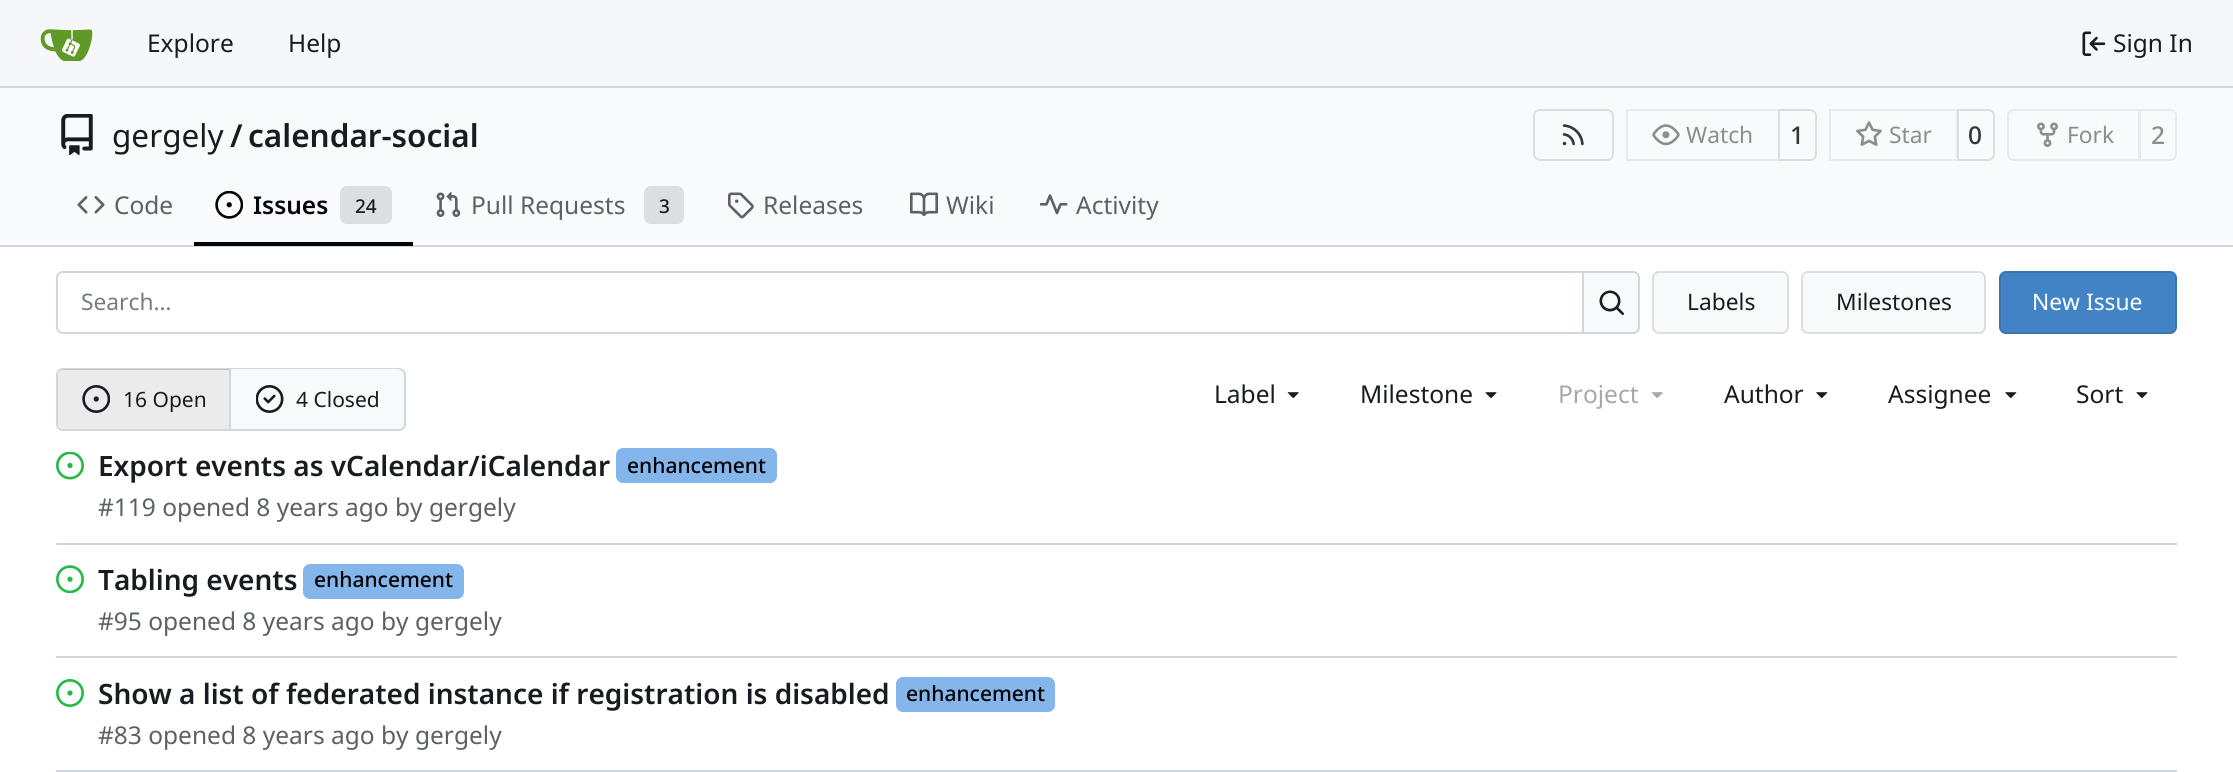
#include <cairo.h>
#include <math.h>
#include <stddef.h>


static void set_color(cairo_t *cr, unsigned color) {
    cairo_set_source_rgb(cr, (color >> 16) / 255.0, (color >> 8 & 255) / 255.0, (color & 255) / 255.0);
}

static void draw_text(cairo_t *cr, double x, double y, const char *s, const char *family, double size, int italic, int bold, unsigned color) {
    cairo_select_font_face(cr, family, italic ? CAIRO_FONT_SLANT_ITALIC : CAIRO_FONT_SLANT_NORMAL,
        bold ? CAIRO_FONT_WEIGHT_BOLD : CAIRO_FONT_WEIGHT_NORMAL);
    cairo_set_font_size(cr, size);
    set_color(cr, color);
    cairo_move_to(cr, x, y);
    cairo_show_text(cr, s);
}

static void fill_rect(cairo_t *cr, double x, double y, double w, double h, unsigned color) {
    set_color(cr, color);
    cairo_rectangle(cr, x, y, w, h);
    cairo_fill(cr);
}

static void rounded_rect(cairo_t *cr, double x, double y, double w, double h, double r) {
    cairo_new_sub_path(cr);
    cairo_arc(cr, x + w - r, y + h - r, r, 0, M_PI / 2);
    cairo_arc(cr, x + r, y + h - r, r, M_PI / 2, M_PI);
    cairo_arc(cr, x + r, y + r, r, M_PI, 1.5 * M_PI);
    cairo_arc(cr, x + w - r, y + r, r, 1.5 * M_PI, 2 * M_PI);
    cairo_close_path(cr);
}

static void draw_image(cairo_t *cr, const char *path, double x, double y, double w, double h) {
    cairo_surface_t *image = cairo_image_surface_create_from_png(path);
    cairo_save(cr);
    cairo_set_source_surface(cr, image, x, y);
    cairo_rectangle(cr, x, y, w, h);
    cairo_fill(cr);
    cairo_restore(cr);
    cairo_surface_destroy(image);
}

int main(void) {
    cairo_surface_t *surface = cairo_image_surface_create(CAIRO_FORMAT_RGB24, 2233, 772);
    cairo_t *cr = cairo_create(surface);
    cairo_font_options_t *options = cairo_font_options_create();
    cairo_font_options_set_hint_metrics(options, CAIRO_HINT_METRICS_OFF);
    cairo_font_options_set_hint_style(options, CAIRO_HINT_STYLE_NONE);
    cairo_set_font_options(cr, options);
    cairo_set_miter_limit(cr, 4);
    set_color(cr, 0xFFFFFF);
    cairo_paint(cr);
    fill_rect(cr, 0, 0, 2233, 86, 0xF6F7FA);
    fill_rect(cr, 0, 86, 2233, 2, 0xD0D7DE);
    draw_image(cr, "assets/img1.png", 40, 29, 53, 32);
    draw_text(cr, 147, 52, "Explore", "Noto Sans", 24.5, 0, 0, 0x181C21);
    draw_text(cr, 288, 52, "Help", "Noto Sans", 24.5, 0, 0, 0x181C21);
    draw_image(cr, "assets/img2.png", 2082, 31, 24, 25);
    draw_text(cr, 2113, 52, "Sign In", "Noto Sans", 24.5, 0, 0, 0x181C21);
    fill_rect(cr, 0, 88, 2233, 157, 0xF9FAFB);
    draw_image(cr, "assets/img3.png", 61, 114, 32, 42);
    draw_text(cr, 112, 147, "gergely", "Noto Sans", 31.5, 0, 0, 0x181C21);
    draw_text(cr, 230, 147, "/", "Noto Sans SemiBold", 31.5, 0, 0, 0x181C21);
    draw_text(cr, 248, 147, "calendar-social", "Noto Sans SemiBold", 31.5, 0, 0, 0x181C21);
    rounded_rect(cr, 1534, 110, 79, 50, 6);
    set_color(cr, 0xDDDEE1);
    cairo_stroke(cr);
    draw_image(cr, "assets/img4.png", 1562, 124, 22, 22);
    cairo_new_path(cr);
    cairo_move_to(cr, 1779, 110);
    cairo_line_to(cr, 1810, 110);
    cairo_curve_to(cr, 1813.5, 110, 1816, 112.5, 1816, 116);
    cairo_line_to(cr, 1816, 154);
    cairo_curve_to(cr, 1816, 157.5, 1813.5, 160, 1810, 160);
    cairo_line_to(cr, 1779, 160);
    cairo_close_path(cr);
    cairo_stroke(cr);
    cairo_set_source_rgba(cr, 0.973, 0.976, 0.984, 0.55);
    cairo_new_path(cr);
    cairo_move_to(cr, 1633, 109);
    cairo_line_to(cr, 1780, 109);
    cairo_line_to(cr, 1780, 161);
    cairo_line_to(cr, 1633, 161);
    cairo_curve_to(cr, 1629, 161, 1626, 158, 1626, 154);
    cairo_line_to(cr, 1626, 116);
    cairo_curve_to(cr, 1626, 112, 1629, 109, 1633, 109);
    cairo_close_path(cr);
    cairo_fill(cr);
    cairo_rectangle(cr, 1627, 110, 152, 50);
    cairo_set_source_rgba(cr, 0, 0, 0.09, 0.06);
    cairo_stroke(cr);
    draw_image(cr, "assets/img5.png", 1652, 124, 28, 22);
    draw_text(cr, 1686, 143, "Watch", "Noto Sans", 22.75, 0, 0, 0x8A8E91);
    draw_text(cr, 1790, 144, "1", "Noto Sans Medium", 24.5, 0, 0, 0x30363B);
    cairo_new_path(cr);
    cairo_move_to(cr, 1958, 110);
    cairo_line_to(cr, 1988, 110);
    cairo_curve_to(cr, 1991.5, 110, 1994, 112.5, 1994, 116);
    cairo_line_to(cr, 1994, 154);
    cairo_curve_to(cr, 1994, 157.5, 1991.5, 160, 1988, 160);
    cairo_line_to(cr, 1958, 160);
    cairo_close_path(cr);
    set_color(cr, 0xDDDEE1);
    cairo_stroke(cr);
    cairo_set_source_rgba(cr, 0.973, 0.976, 0.984, 0.55);
    cairo_new_path(cr);
    cairo_move_to(cr, 1836, 109);
    cairo_line_to(cr, 1958, 109);
    cairo_line_to(cr, 1958, 161);
    cairo_line_to(cr, 1836, 161);
    cairo_curve_to(cr, 1832, 161, 1829, 158, 1829, 154);
    cairo_line_to(cr, 1829, 116);
    cairo_curve_to(cr, 1829, 112, 1832, 109, 1836, 109);
    cairo_close_path(cr);
    cairo_fill(cr);
    cairo_rectangle(cr, 1830, 110, 127, 50);
    cairo_set_source_rgba(cr, 0, 0, 0.09, 0.06);
    cairo_stroke(cr);
    draw_image(cr, "assets/img6.png", 1856, 121, 26, 25);
    draw_text(cr, 1889, 143, "Star", "Noto Sans", 22.75, 0, 0, 0x8A8E91);
    draw_text(cr, 1968, 144, "0", "Noto Sans Medium", 24.5, 0, 0, 0x30363B);
    cairo_new_path(cr);
    cairo_move_to(cr, 2014, 110);
    cairo_line_to(cr, 2139, 110);
    cairo_line_to(cr, 2139, 160);
    cairo_line_to(cr, 2014, 160);
    cairo_curve_to(cr, 2010.5, 160, 2008, 157.5, 2008, 154);
    cairo_line_to(cr, 2008, 116);
    cairo_curve_to(cr, 2008, 112.5, 2010.5, 110, 2014, 110);
    cairo_close_path(cr);
    set_color(cr, 0xE9EAED);
    cairo_stroke(cr);
    draw_image(cr, "assets/img7.png", 2037, 122, 21, 25);
    draw_text(cr, 2067, 143, "Fork", "Noto Sans", 22.75, 0, 0, 0x8A8E91);
    set_color(cr, 0xF8F9FB);
    cairo_new_path(cr);
    cairo_move_to(cr, 2140, 110);
    cairo_line_to(cr, 2170, 110);
    cairo_curve_to(cr, 2173.5, 110, 2176, 112.5, 2176, 116);
    cairo_line_to(cr, 2176, 154);
    cairo_curve_to(cr, 2176, 157.5, 2173.5, 160, 2170, 160);
    cairo_line_to(cr, 2140, 160);
    cairo_close_path(cr);
    cairo_fill_preserve(cr);
    set_color(cr, 0xE9EAED);
    cairo_stroke(cr);
    draw_text(cr, 2151, 144, "2", "Noto Sans Medium", 24.5, 0, 0, 0x8A8E91);
    draw_image(cr, "assets/img8.png", 77, 196, 28, 18);
    draw_text(cr, 114, 214, "Code", "Noto Sans", 24.5, 0, 0, 0x5B6167);
    fill_rect(cr, 0, 245, 2233, 2, 0xD0D7DE);
    fill_rect(cr, 194, 242, 219, 4, 0x01050A);
    draw_image(cr, "assets/img9.png", 215, 191, 28, 28);
    draw_text(cr, 253, 214, "Issues", "Noto Sans SemiBold", 24.5, 0, 0, 0x01050A);
    set_color(cr, 0xDBDFE2);
    rounded_rect(cr, 340, 186, 52, 38, 7);
    cairo_fill(cr);
    draw_text(cr, 355, 213, "24", "Noto Sans Medium", 19, 0, 0, 0x181C21);
    draw_image(cr, "assets/img10.png", 436, 191, 25, 26);
    draw_text(cr, 471, 214, "Pull Requests", "Noto Sans", 24.5, 0, 0, 0x5B6167);
    set_color(cr, 0xDBDFE2);
    rounded_rect(cr, 644, 186, 40, 38, 7);
    cairo_fill(cr);
    draw_text(cr, 659, 213, "3", "Noto Sans Medium", 19, 0, 0, 0x181C21);
    draw_image(cr, "assets/img11.png", 728, 192, 26, 27);
    draw_text(cr, 763, 214, "Releases", "Noto Sans", 24.5, 0, 0, 0x5B6167);
    draw_image(cr, "assets/img12.png", 910, 192, 28, 25);
    draw_text(cr, 946, 214, "Wiki", "Noto Sans", 24.5, 0, 0, 0x5B6167);
    draw_image(cr, "assets/img13.png", 1040, 194, 28, 21);
    draw_text(cr, 1076, 214, "Activity", "Noto Sans", 24.5, 0, 0, 0x5B6167);
    set_color(cr, 0xD0D7DE);
    cairo_set_fill_rule(cr, CAIRO_FILL_RULE_EVEN_ODD);
    cairo_new_path(cr);
    cairo_move_to(cr, 63, 271);
    cairo_line_to(cr, 1582, 271);
    cairo_line_to(cr, 1582, 334);
    cairo_line_to(cr, 63, 334);
    cairo_curve_to(cr, 59, 334, 56, 331, 56, 327);
    cairo_line_to(cr, 56, 278);
    cairo_curve_to(cr, 56, 274, 59, 271, 63, 271);
    cairo_close_path(cr);
    cairo_move_to(cr, 63, 273);
    cairo_line_to(cr, 1582, 273);
    cairo_line_to(cr, 1582, 332);
    cairo_line_to(cr, 63, 332);
    cairo_curve_to(cr, 60, 332, 58, 330, 58, 327);
    cairo_line_to(cr, 58, 278);
    cairo_curve_to(cr, 58, 275, 60, 273, 63, 273);
    cairo_close_path(cr);
    cairo_fill(cr);
    draw_text(cr, 81, 310, "Search…", "Noto Sans", 22.75, 0, 0, 0x747C84);
    set_color(cr, 0xF8F9FB);
    cairo_new_path(cr);
    cairo_move_to(cr, 1583, 272);
    cairo_line_to(cr, 1633, 272);
    cairo_curve_to(cr, 1636.5, 272, 1639, 274.5, 1639, 278);
    cairo_line_to(cr, 1639, 327);
    cairo_curve_to(cr, 1639, 330.5, 1636.5, 333, 1633, 333);
    cairo_line_to(cr, 1583, 333);
    cairo_close_path(cr);
    cairo_fill_preserve(cr);
    set_color(cr, 0xD0D7DE);
    cairo_stroke(cr);
    draw_image(cr, "assets/img14.png", 1599, 290, 25, 25);
    set_color(cr, 0xF8F9FB);
    rounded_rect(cr, 1652, 271, 137, 63, 7);
    cairo_fill(cr);
    rounded_rect(cr, 1653, 272, 135, 61, 6);
    cairo_set_source_rgba(cr, 0, 0, 0.09, 0.11);
    cairo_stroke(cr);
    draw_text(cr, 1687, 310, "Labels", "Noto Sans", 22.75, 0, 0, 0x181C21);
    set_color(cr, 0xF8F9FB);
    rounded_rect(cr, 1801, 271, 185, 63, 7);
    cairo_fill(cr);
    rounded_rect(cr, 1802, 272, 183, 61, 6);
    cairo_set_source_rgba(cr, 0, 0, 0.09, 0.11);
    cairo_stroke(cr);
    draw_text(cr, 1836, 310, "Milestones", "Noto Sans", 22.75, 0, 0, 0x181C21);
    set_color(cr, 0x4183C4);
    rounded_rect(cr, 1999, 271, 178, 63, 7);
    cairo_fill(cr);
    rounded_rect(cr, 2000, 272, 176, 61, 6);
    cairo_set_source_rgba(cr, 0, 0, 0.09, 0.11);
    cairo_stroke(cr);
    draw_text(cr, 2032, 310, "New Issue", "Noto Sans", 22.75, 0, 0, 0xFFFFFF);
    rounded_rect(cr, 57, 369, 348, 61, 6);
    set_color(cr, 0xD0D7DE);
    cairo_stroke(cr);
    cairo_set_source_rgba(cr, 0, 0, 0.09, 0.08);
    cairo_new_path(cr);
    cairo_move_to(cr, 65, 369);
    cairo_line_to(cr, 231, 369);
    cairo_line_to(cr, 231, 429);
    cairo_line_to(cr, 65, 429);
    cairo_curve_to(cr, 61, 429, 58, 426, 58, 422);
    cairo_line_to(cr, 58, 376);
    cairo_curve_to(cr, 58, 372, 61, 369, 65, 369);
    cairo_close_path(cr);
    cairo_fill(cr);
    draw_image(cr, "assets/img15.png", 82, 385, 28, 28);
    draw_text(cr, 123, 407, "16 Open", "Noto Sans", 21, 0, 0, 0x181C21);
    fill_rect(cr, 229, 369, 2, 60, 0xD0D7DE);
    set_color(cr, 0xF8F9FB);
    cairo_new_path(cr);
    cairo_move_to(cr, 231, 369);
    cairo_line_to(cr, 397, 369);
    cairo_curve_to(cr, 401, 369, 404, 372, 404, 376);
    cairo_line_to(cr, 404, 422);
    cairo_curve_to(cr, 404, 426, 401, 429, 397, 429);
    cairo_line_to(cr, 231, 429);
    cairo_close_path(cr);
    cairo_fill(cr);
    draw_image(cr, "assets/img16.png", 256, 385, 28, 28);
    draw_text(cr, 296, 407, "4 Closed", "Noto Sans", 21, 0, 0, 0x181C21);
    draw_text(cr, 1214, 403, "Label", "Noto Sans", 24.5, 0, 0, 0x181C21);
    draw_image(cr, "assets/img17.png", 1287, 392, 12, 7);
    draw_text(cr, 1360, 403, "Milestone", "Noto Sans", 24.5, 0, 0, 0x181C21);
    draw_image(cr, "assets/img18.png", 1485, 392, 12, 7);
    draw_text(cr, 1558, 403, "Project", "Noto Sans", 24.5, 0, 0, 0xA5A8AB);
    draw_image(cr, "assets/img19.png", 1651, 392, 12, 7);
    draw_text(cr, 1724, 403, "Author", "Noto Sans", 24.5, 0, 0, 0x181C21);
    draw_image(cr, "assets/img20.png", 1816, 392, 12, 7);
    draw_text(cr, 1888, 403, "Assignee", "Noto Sans", 24.5, 0, 0, 0x181C21);
    draw_image(cr, "assets/img20.png", 2005, 392, 12, 7);
    draw_text(cr, 2076, 403, "Sort", "Noto Sans", 24.5, 0, 0, 0x181C21);
    draw_image(cr, "assets/img18.png", 2136, 392, 12, 7);
    draw_image(cr, "assets/img21.png", 56, 452, 28, 28);
    draw_text(cr, 98, 476, "Export events as vCalendar/iCalendar", "Noto Sans SemiBold", 28, 0, 0, 0x181C21);
    set_color(cr, 0x84B6EB);
    rounded_rect(cr, 616, 448, 161, 35, 7);
    cairo_fill(cr);
    draw_text(cr, 627, 473, "enhancement", "Noto Sans Medium", 21, 0, 0, 0x000000);
    draw_text(cr, 98, 516, "#119 opened 8 years ago by gergely", "Noto Sans", 24.5, 0, 0, 0x5B6167);
    fill_rect(cr, 56, 543, 2121, 2, 0xD0D7DE);
    draw_image(cr, "assets/img22.png", 56, 565, 28, 28);
    draw_text(cr, 98, 590, "Tabling events", "Noto Sans SemiBold", 28, 0, 0, 0x181C21);
    set_color(cr, 0x84B6EB);
    rounded_rect(cr, 303, 564, 161, 35, 7);
    cairo_fill(cr);
    draw_text(cr, 314, 587, "enhancement", "Noto Sans Medium", 21, 0, 0, 0x000000);
    draw_text(cr, 98, 630, "#95 opened 8 years ago by gergely", "Noto Sans", 24.5, 0, 0, 0x5B6167);
    fill_rect(cr, 56, 656, 2121, 2, 0xD0D7DE);
    draw_image(cr, "assets/img23.png", 56, 679, 28, 28);
    draw_text(cr, 98, 704, "Show a list of federated instance if registration is disabled", "Noto Sans SemiBold", 28, 0, 0, 0x181C21);
    set_color(cr, 0x84B6EB);
    rounded_rect(cr, 896, 677, 159, 35, 7);
    cairo_fill(cr);
    draw_text(cr, 906, 701, "enhancement", "Noto Sans Medium", 21, 0, 0, 0x000000);
    draw_text(cr, 98, 744, "#83 opened 8 years ago by gergely", "Noto Sans", 24.5, 0, 0, 0x5B6167);
    fill_rect(cr, 56, 770, 2121, 2, 0xD0D7DE);
    cairo_surface_write_to_png(surface, "output.png");
    cairo_font_options_destroy(options);
    cairo_destroy(cr);
    cairo_surface_destroy(surface);
    return 0;
}
